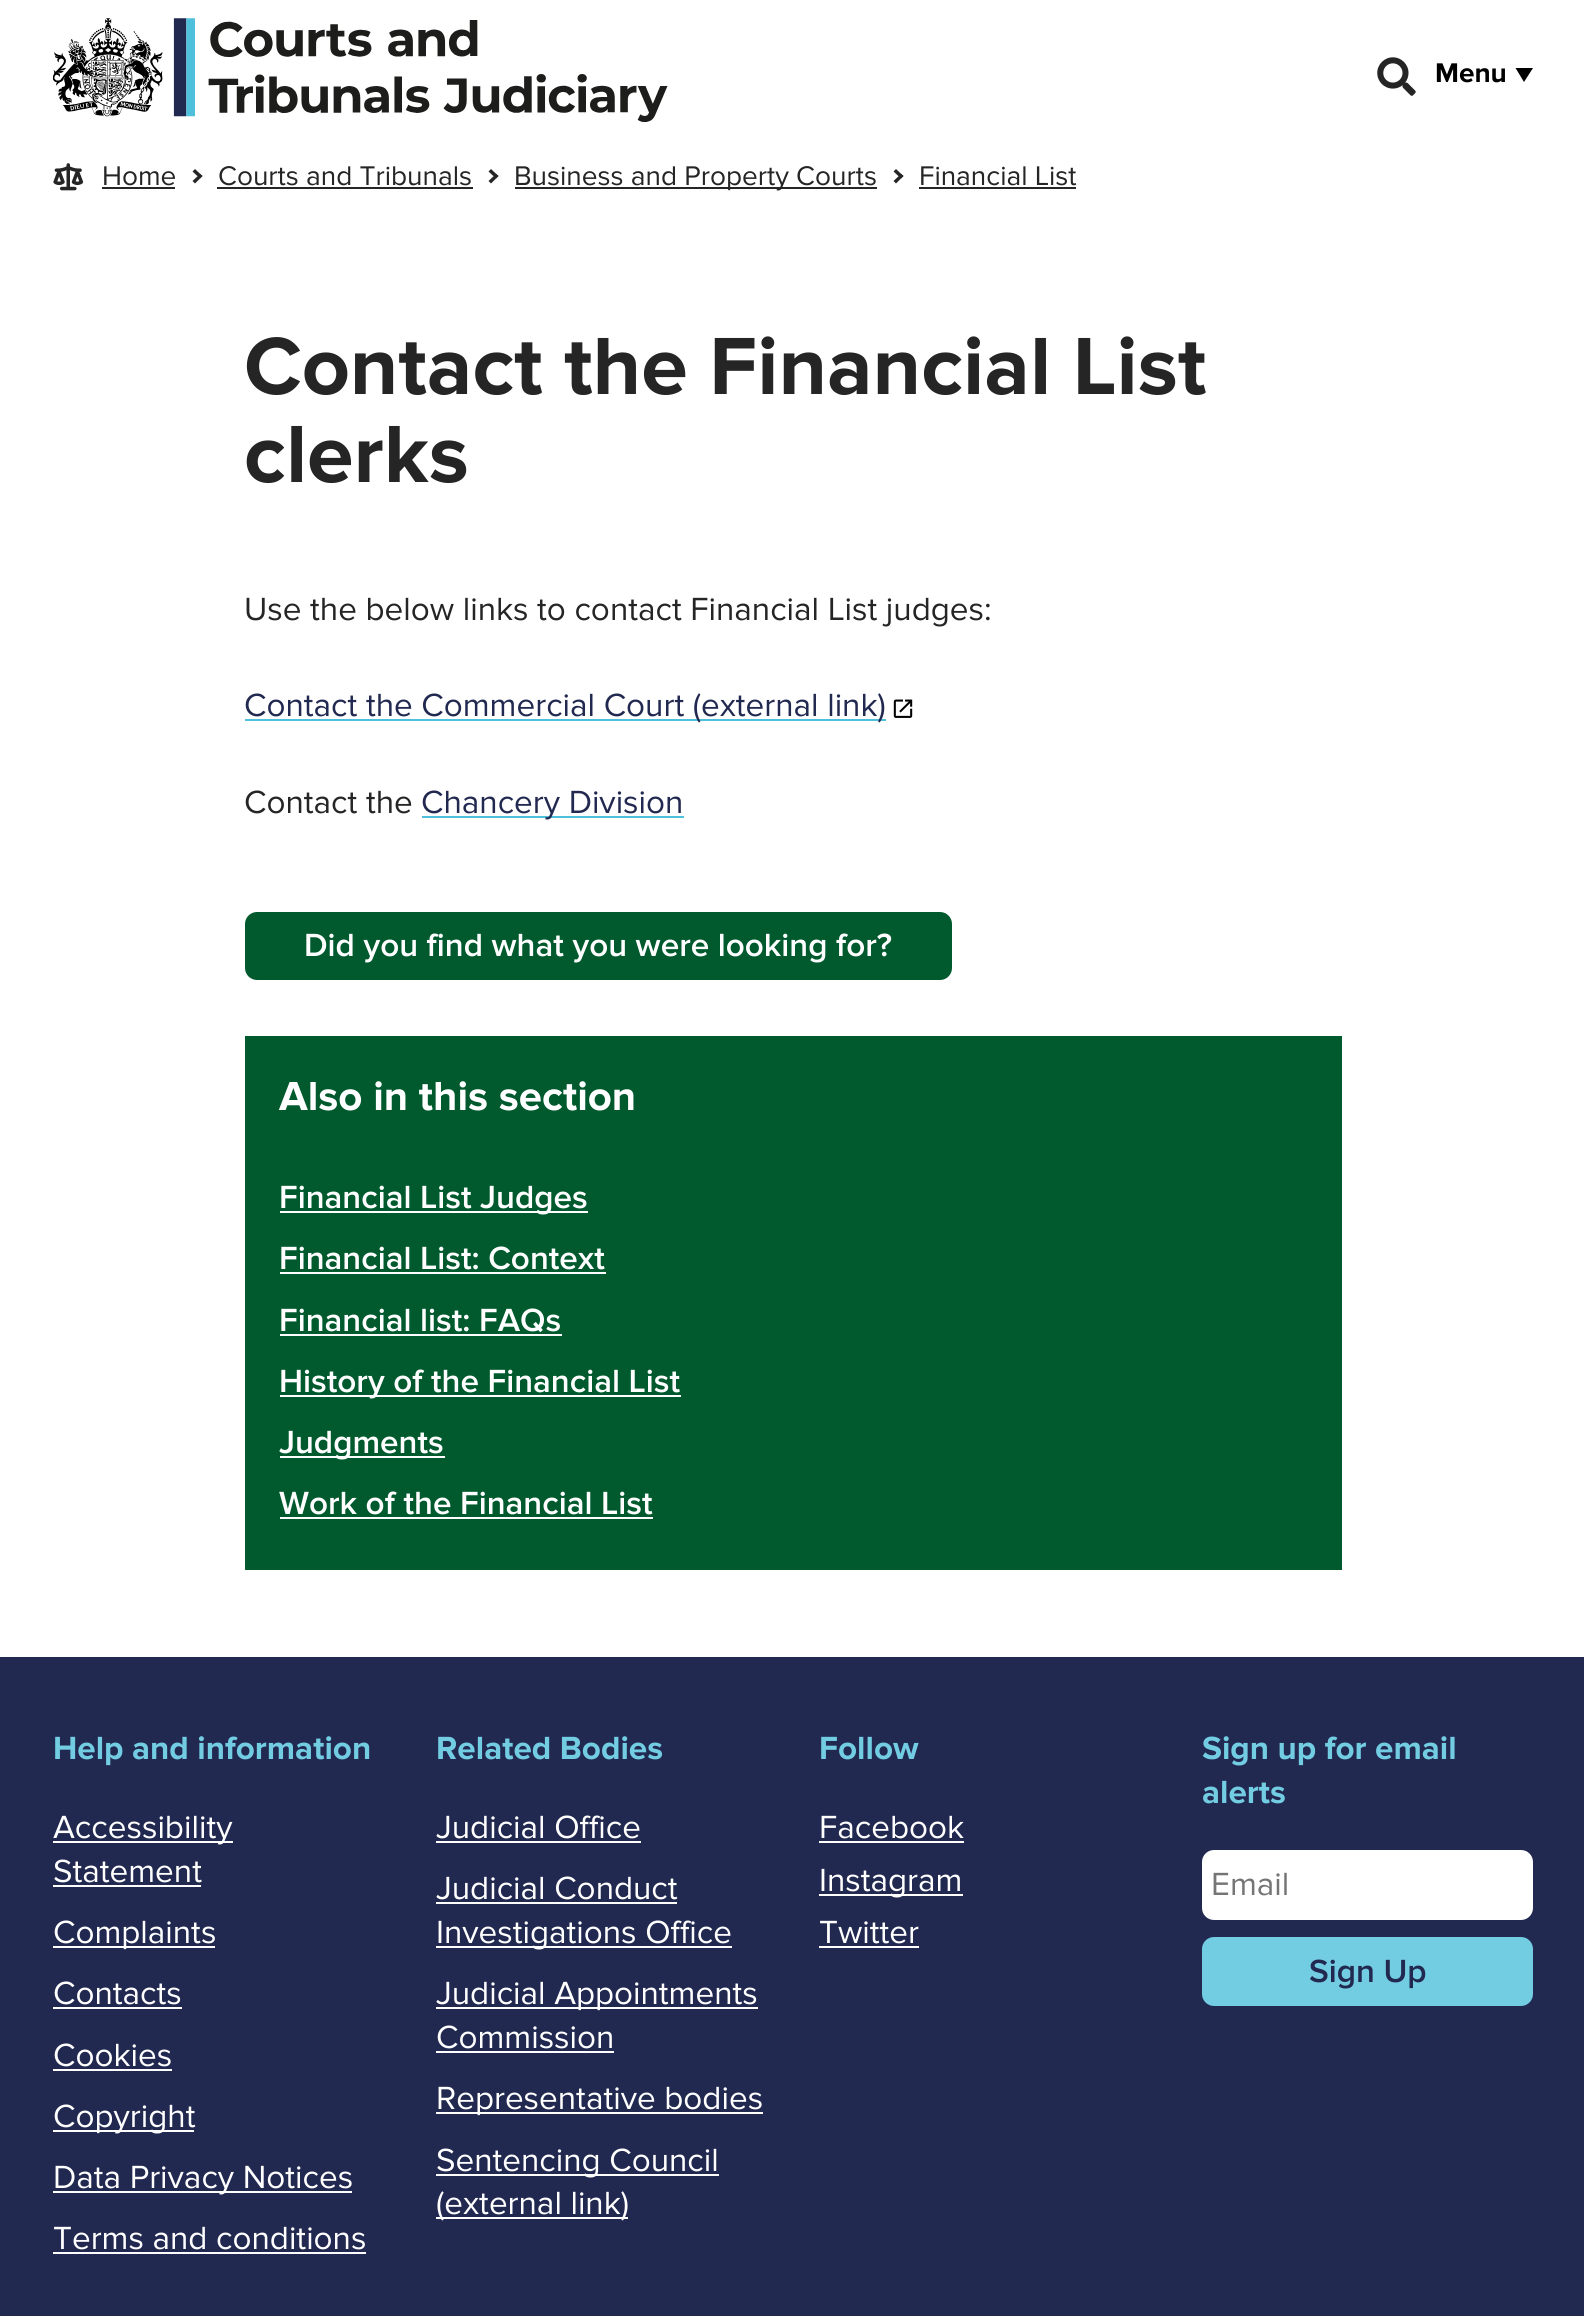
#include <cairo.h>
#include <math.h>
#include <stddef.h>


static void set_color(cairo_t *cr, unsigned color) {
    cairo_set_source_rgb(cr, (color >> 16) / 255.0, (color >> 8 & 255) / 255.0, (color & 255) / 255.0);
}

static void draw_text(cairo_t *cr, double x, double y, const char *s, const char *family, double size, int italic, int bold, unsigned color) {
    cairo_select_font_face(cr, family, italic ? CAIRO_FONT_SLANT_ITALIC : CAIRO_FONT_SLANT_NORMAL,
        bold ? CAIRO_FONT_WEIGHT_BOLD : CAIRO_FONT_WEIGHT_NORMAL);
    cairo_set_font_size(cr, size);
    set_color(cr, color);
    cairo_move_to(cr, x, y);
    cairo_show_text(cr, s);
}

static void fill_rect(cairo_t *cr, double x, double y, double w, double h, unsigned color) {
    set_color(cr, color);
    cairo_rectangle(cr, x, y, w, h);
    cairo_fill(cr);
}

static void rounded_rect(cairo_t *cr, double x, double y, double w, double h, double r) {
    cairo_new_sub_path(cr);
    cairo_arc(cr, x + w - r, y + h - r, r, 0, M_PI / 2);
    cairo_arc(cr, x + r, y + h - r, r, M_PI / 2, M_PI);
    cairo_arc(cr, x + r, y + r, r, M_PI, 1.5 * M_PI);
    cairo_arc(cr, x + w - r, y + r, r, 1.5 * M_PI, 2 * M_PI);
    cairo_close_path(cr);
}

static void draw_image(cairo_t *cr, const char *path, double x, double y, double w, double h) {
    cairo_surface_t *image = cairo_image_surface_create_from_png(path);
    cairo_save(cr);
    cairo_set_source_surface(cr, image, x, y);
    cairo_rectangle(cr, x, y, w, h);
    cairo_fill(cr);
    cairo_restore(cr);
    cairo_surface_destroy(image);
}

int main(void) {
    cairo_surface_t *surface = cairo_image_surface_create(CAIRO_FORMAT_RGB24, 1584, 2316);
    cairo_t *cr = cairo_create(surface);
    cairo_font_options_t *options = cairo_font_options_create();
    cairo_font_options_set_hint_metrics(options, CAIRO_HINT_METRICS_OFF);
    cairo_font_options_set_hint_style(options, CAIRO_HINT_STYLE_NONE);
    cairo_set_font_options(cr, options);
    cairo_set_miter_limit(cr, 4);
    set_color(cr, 0xFFFFFF);
    cairo_paint(cr);
    draw_image(cr, "assets/img1.png", 53, 18, 615, 104);
    draw_image(cr, "assets/img2.png", 1377, 57, 39, 39);
    draw_text(cr, 1435, 82, "Menu", "Proxima Nova", 28, 0, 1, 0x000000);
    cairo_new_path(cr);
    cairo_move_to(cr, 1521, 77);
    cairo_line_to(cr, 1515.5, 68);
    cairo_line_to(cr, 1533, 68);
    cairo_line_to(cr, 1524, 82);
    cairo_close_path(cr);
    cairo_fill(cr);
    draw_image(cr, "assets/img3.png", 53, 163, 31, 28);
    draw_text(cr, 102, 185, "Home", "Proxima Nova", 28, 0, 0, 0x252526);
    fill_rect(cr, 102, 187, 73, 2, 0x252526);
    cairo_new_path(cr);
    cairo_move_to(cr, 195, 169);
    cairo_line_to(cr, 202.5, 176);
    cairo_line_to(cr, 200, 178.5);
    cairo_line_to(cr, 192.5, 171.5);
    cairo_close_path(cr);
    cairo_fill(cr);
    cairo_new_path(cr);
    cairo_move_to(cr, 200, 174);
    cairo_line_to(cr, 202.5, 176);
    cairo_line_to(cr, 195, 183.5);
    cairo_line_to(cr, 192.5, 181);
    cairo_close_path(cr);
    cairo_fill(cr);
    draw_text(cr, 218, 185, "Courts and Tribunals", "Proxima Nova", 28, 0, 0, 0x252526);
    fill_rect(cr, 217, 187, 256, 2, 0x252526);
    cairo_new_path(cr);
    cairo_move_to(cr, 491, 169);
    cairo_line_to(cr, 498.5, 176);
    cairo_line_to(cr, 496, 178.5);
    cairo_line_to(cr, 488.5, 171.5);
    cairo_close_path(cr);
    cairo_fill(cr);
    cairo_new_path(cr);
    cairo_move_to(cr, 496, 174);
    cairo_line_to(cr, 498.5, 176);
    cairo_line_to(cr, 491, 183.5);
    cairo_line_to(cr, 488.5, 181);
    cairo_close_path(cr);
    cairo_fill(cr);
    fill_rect(cr, 515, 187, 362, 2, 0x252526);
    draw_text(cr, 514, 185, "Business and Property Courts", "Proxima Nova", 28, 0, 0, 0x252526);
    cairo_new_path(cr);
    cairo_move_to(cr, 896, 169);
    cairo_line_to(cr, 903.5, 176);
    cairo_line_to(cr, 901, 178.5);
    cairo_line_to(cr, 893.5, 171.5);
    cairo_close_path(cr);
    cairo_fill(cr);
    cairo_new_path(cr);
    cairo_move_to(cr, 901, 174);
    cairo_line_to(cr, 903.5, 176);
    cairo_line_to(cr, 896, 183.5);
    cairo_line_to(cr, 893.5, 181);
    cairo_close_path(cr);
    cairo_fill(cr);
    draw_text(cr, 919, 185, "Financial List", "Proxima Nova", 28, 0, 0, 0x252526);
    fill_rect(cr, 919, 187, 157, 2, 0x252526);
    draw_text(cr, 244, 394, "Contact the Financial List", "Proxima Nova", 84, 0, 1, 0x252526);
    draw_text(cr, 244, 482, "clerks", "Proxima Nova", 84, 0, 1, 0x252526);
    draw_text(cr, 244, 620, "Use the below links to contact Financial List judges:", "Proxima Nova", 33.25, 0, 0, 0x252526);
    fill_rect(cr, 245, 719, 641, 2, 0x4EC0DB);
    draw_text(cr, 244, 716, "Contact the Commercial Court (external link)", "Proxima Nova", 33.25, 0, 0, 0x222950);
    draw_image(cr, "assets/img4.png", 893, 699, 20, 19);
    draw_text(cr, 244, 813, "Contact the", "Proxima Nova", 33.25, 0, 0, 0x252526);
    fill_rect(cr, 422, 816, 262, 2, 0x4EC0DB);
    draw_text(cr, 421, 813, "Chancery Division", "Proxima Nova", 33.25, 0, 0, 0x222950);
    set_color(cr, 0x005A2E);
    rounded_rect(cr, 245, 912, 707, 68, 12);
    cairo_fill(cr);
    draw_text(cr, 304, 956, "Did you find what you were looking for?", "Proxima Nova SemiBold", 33.25, 0, 0, 0xFFFFFF);
    fill_rect(cr, 245, 1036, 1097, 534, 0x005A2E);
    draw_text(cr, 279, 1110, "Also in this section", "Proxima Nova", 42, 0, 1, 0xFFFFFF);
    fill_rect(cr, 280, 1211, 308, 2, 0xFFFFFF);
    draw_text(cr, 279, 1208, "Financial List Judges", "Proxima Nova SemiBold", 33.25, 0, 0, 0xFFFFFF);
    draw_text(cr, 279, 1269, "Financial List: Context", "Proxima Nova SemiBold", 33.25, 0, 0, 0xFFFFFF);
    fill_rect(cr, 280, 1272, 326, 2, 0xFFFFFF);
    draw_text(cr, 279, 1331, "Financial list: FAQs", "Proxima Nova SemiBold", 33.25, 0, 0, 0xFFFFFF);
    fill_rect(cr, 280, 1334, 282, 2, 0xFFFFFF);
    fill_rect(cr, 280, 1395, 401, 2, 0xFFFFFF);
    draw_text(cr, 279, 1392, "History of the Financial List", "Proxima Nova SemiBold", 33.25, 0, 0, 0xFFFFFF);
    fill_rect(cr, 280, 1456, 165, 2, 0xFFFFFF);
    draw_text(cr, 279, 1453, "Judgments", "Proxima Nova SemiBold", 33.25, 0, 0, 0xFFFFFF);
    draw_text(cr, 279, 1514, "Work of the Financial List", "Proxima Nova SemiBold", 33.25, 0, 0, 0xFFFFFF);
    fill_rect(cr, 280, 1517, 373, 2, 0xFFFFFF);
    fill_rect(cr, 0, 1657, 1584, 659, 0x222950);
    draw_text(cr, 53, 1759, "Help and information", "Proxima Nova", 33.25, 0, 1, 0x72CCE2);
    fill_rect(cr, 53, 1841, 180, 2, 0xFFFFFF);
    draw_text(cr, 53, 1838, "Accessibility", "Proxima Nova", 33.25, 0, 0, 0xFFFFFF);
    draw_text(cr, 53, 1882, "Statement", "Proxima Nova", 33.25, 0, 0, 0xFFFFFF);
    fill_rect(cr, 53, 1885, 148, 2, 0xFFFFFF);
    fill_rect(cr, 53, 1946, 162, 2, 0xFFFFFF);
    draw_text(cr, 53, 1943, "Complaints", "Proxima Nova", 33.25, 0, 0, 0xFFFFFF);
    draw_text(cr, 53, 2004, "Contacts", "Proxima Nova", 33.25, 0, 0, 0xFFFFFF);
    fill_rect(cr, 53, 2007, 129, 2, 0xFFFFFF);
    draw_text(cr, 53, 2066, "Cookies", "Proxima Nova", 33.25, 0, 0, 0xFFFFFF);
    fill_rect(cr, 53, 2069, 119, 2, 0xFFFFFF);
    fill_rect(cr, 53, 2130, 141, 2, 0xFFFFFF);
    draw_text(cr, 53, 2127, "Copyright", "Proxima Nova", 33.25, 0, 0, 0xFFFFFF);
    fill_rect(cr, 53, 2191, 299, 2, 0xFFFFFF);
    draw_text(cr, 53, 2188, "Data Privacy Notices", "Proxima Nova", 33.25, 0, 0, 0xFFFFFF);
    draw_text(cr, 53, 2249, "Terms and conditions", "Proxima Nova", 33.25, 0, 0, 0xFFFFFF);
    fill_rect(cr, 53, 2252, 313, 2, 0xFFFFFF);
    draw_text(cr, 436, 1759, "Related Bodies", "Proxima Nova", 33.25, 0, 1, 0x72CCE2);
    draw_text(cr, 436, 1838, "Judicial Office", "Proxima Nova", 33.25, 0, 0, 0xFFFFFF);
    fill_rect(cr, 436, 1841, 205, 2, 0xFFFFFF);
    draw_text(cr, 436, 1899, "Judicial Conduct", "Proxima Nova", 33.25, 0, 0, 0xFFFFFF);
    fill_rect(cr, 436, 1902, 241, 2, 0xFFFFFF);
    fill_rect(cr, 436, 1946, 296, 2, 0xFFFFFF);
    draw_text(cr, 436, 1943, "Investigations Office", "Proxima Nova", 33.25, 0, 0, 0xFFFFFF);
    fill_rect(cr, 436, 2007, 322, 2, 0xFFFFFF);
    draw_text(cr, 436, 2004, "Judicial Appointments", "Proxima Nova", 33.25, 0, 0, 0xFFFFFF);
    draw_text(cr, 436, 2048, "Commission", "Proxima Nova", 33.25, 0, 0, 0xFFFFFF);
    fill_rect(cr, 436, 2051, 178, 2, 0xFFFFFF);
    fill_rect(cr, 436, 2112, 327, 2, 0xFFFFFF);
    draw_text(cr, 436, 2109, "Representative bodies", "Proxima Nova", 33.25, 0, 0, 0xFFFFFF);
    fill_rect(cr, 436, 2174, 283, 2, 0xFFFFFF);
    draw_text(cr, 436, 2171, "Sentencing Council", "Proxima Nova", 33.25, 0, 0, 0xFFFFFF);
    fill_rect(cr, 436, 2217, 192, 2, 0xFFFFFF);
    draw_text(cr, 436, 2214, "(external link)", "Proxima Nova", 33.25, 0, 0, 0xFFFFFF);
    draw_text(cr, 819, 1759, "Follow", "Proxima Nova", 33.25, 0, 1, 0x72CCE2);
    draw_text(cr, 819, 1838, "Facebook", "Proxima Nova", 33.25, 0, 0, 0xFFFFFF);
    fill_rect(cr, 819, 1841, 145, 2, 0xFFFFFF);
    fill_rect(cr, 819, 1894, 144, 2, 0xFFFFFF);
    draw_text(cr, 819, 1891, "Instagram", "Proxima Nova", 33.25, 0, 0, 0xFFFFFF);
    draw_text(cr, 819, 1943, "Twitter", "Proxima Nova", 33.25, 0, 0, 0xFFFFFF);
    fill_rect(cr, 819, 1946, 100, 2, 0xFFFFFF);
    draw_text(cr, 1202, 1759, "Sign up for email", "Proxima Nova", 33.25, 0, 1, 0x72CCE2);
    draw_text(cr, 1202, 1803, "alerts", "Proxima Nova", 33.25, 0, 1, 0x72CCE2);
    set_color(cr, 0xFFFFFF);
    rounded_rect(cr, 1202, 1850, 331, 70, 12);
    cairo_fill(cr);
    draw_text(cr, 1211, 1895, "Email", "Proxima Nova", 33.25, 0, 0, 0x757575);
    set_color(cr, 0x72CCE2);
    rounded_rect(cr, 1202, 1937, 331, 69, 12);
    cairo_fill(cr);
    draw_text(cr, 1309, 1982, "Sign Up", "Proxima Nova SemiBold", 33.25, 0, 0, 0x222950);
    cairo_surface_write_to_png(surface, "output.png");
    cairo_font_options_destroy(options);
    cairo_destroy(cr);
    cairo_surface_destroy(surface);
    return 0;
}
